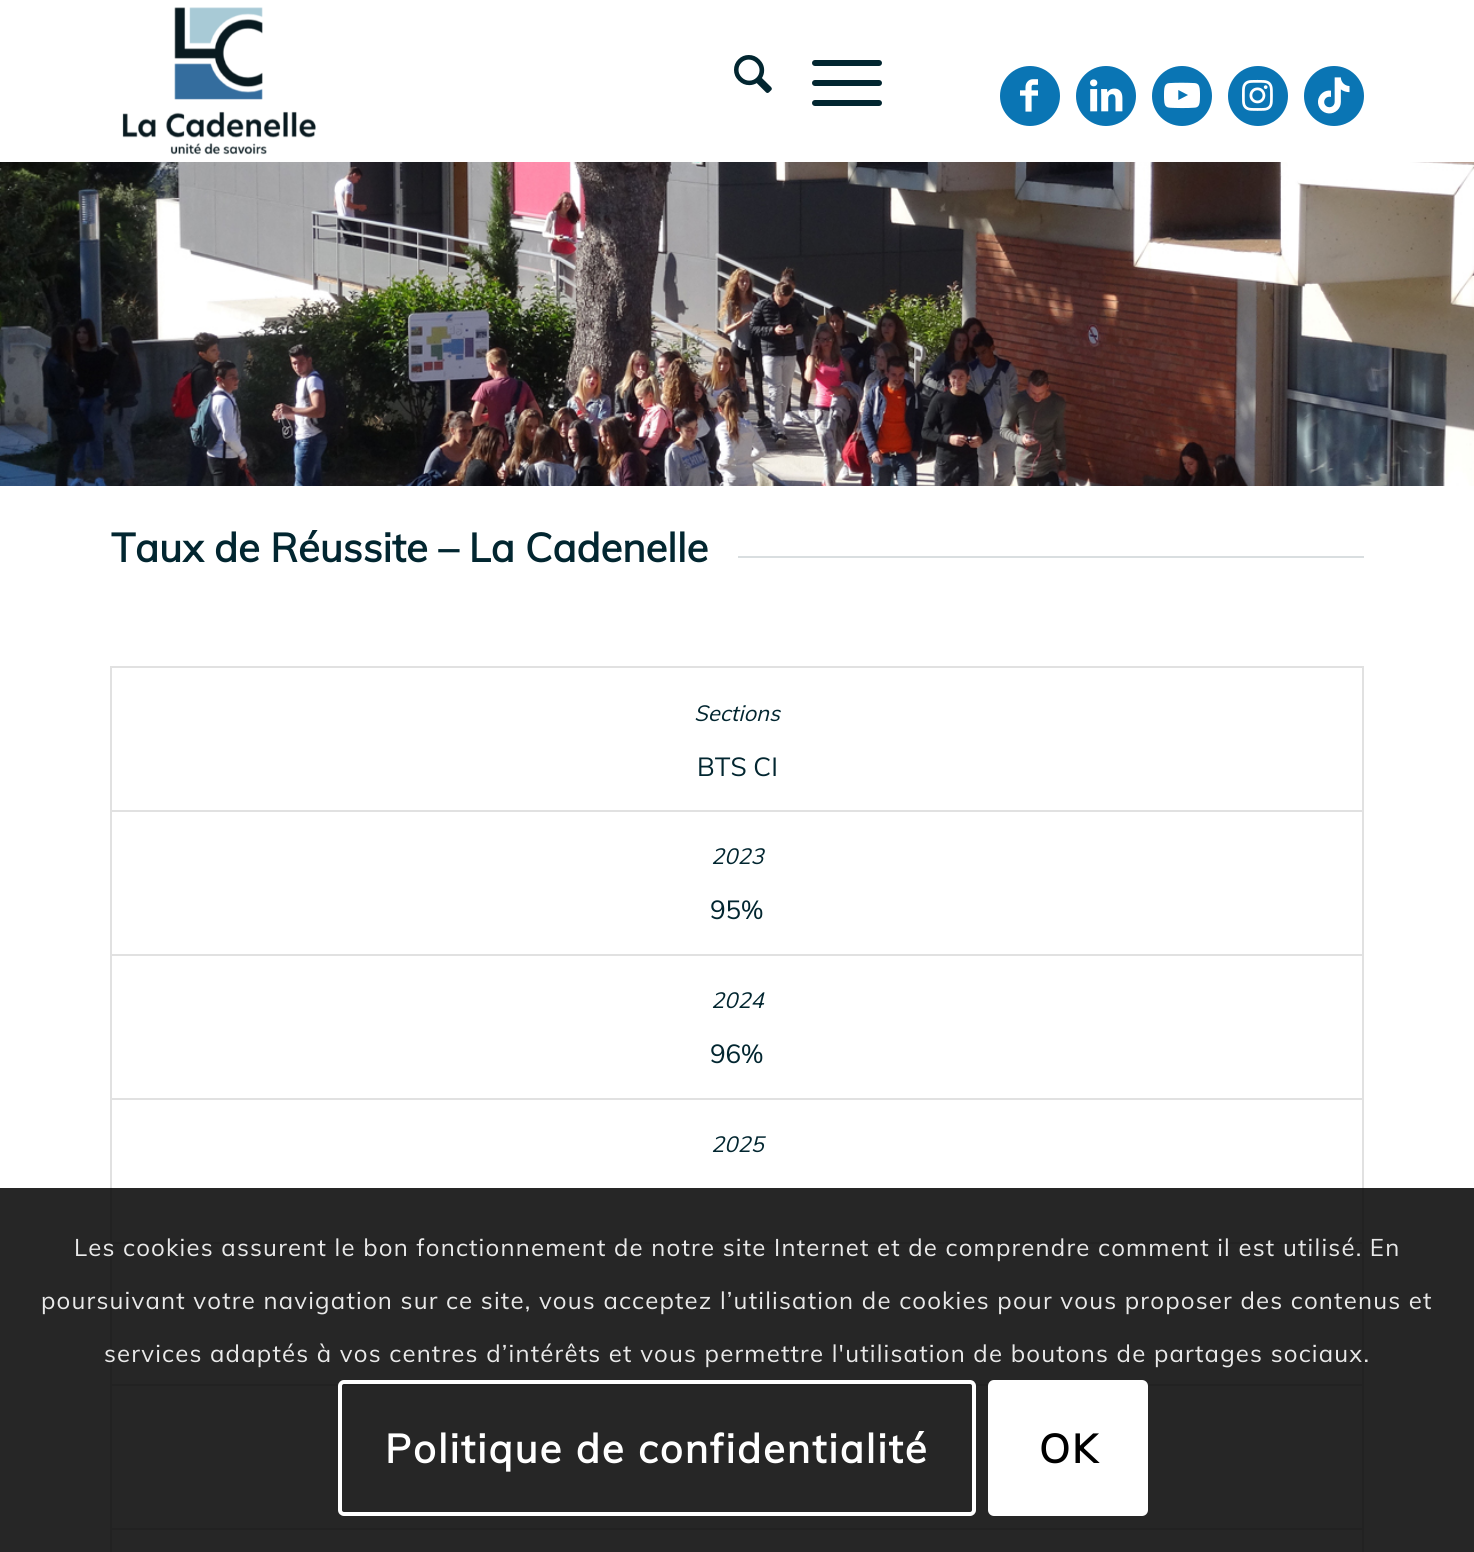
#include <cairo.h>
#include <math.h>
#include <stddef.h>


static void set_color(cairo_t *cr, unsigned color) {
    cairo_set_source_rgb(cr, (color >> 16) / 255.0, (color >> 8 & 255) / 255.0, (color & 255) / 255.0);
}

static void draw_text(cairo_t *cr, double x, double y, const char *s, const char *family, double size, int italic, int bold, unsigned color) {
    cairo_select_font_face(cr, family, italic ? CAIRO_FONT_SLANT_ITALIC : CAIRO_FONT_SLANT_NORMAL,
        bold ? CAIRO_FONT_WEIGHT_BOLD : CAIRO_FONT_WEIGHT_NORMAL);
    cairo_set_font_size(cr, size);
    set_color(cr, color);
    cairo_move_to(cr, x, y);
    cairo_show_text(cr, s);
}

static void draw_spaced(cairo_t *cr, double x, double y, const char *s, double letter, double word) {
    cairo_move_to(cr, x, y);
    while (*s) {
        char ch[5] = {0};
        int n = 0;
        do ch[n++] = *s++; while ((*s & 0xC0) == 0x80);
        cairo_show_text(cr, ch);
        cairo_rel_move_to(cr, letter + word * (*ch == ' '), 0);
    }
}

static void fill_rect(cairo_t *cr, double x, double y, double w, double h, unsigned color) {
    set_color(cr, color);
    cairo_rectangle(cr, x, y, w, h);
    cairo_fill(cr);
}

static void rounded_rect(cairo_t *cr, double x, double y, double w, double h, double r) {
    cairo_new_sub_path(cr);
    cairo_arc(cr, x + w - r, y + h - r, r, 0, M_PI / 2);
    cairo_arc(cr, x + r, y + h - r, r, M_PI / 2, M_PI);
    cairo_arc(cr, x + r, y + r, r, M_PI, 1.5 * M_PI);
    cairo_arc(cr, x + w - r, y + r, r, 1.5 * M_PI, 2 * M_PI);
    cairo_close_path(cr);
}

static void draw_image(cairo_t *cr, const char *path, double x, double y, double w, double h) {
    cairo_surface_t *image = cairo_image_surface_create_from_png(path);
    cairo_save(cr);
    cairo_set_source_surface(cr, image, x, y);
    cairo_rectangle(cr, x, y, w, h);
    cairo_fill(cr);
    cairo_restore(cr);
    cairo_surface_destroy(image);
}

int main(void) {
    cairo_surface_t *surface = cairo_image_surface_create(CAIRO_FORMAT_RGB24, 1474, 1552);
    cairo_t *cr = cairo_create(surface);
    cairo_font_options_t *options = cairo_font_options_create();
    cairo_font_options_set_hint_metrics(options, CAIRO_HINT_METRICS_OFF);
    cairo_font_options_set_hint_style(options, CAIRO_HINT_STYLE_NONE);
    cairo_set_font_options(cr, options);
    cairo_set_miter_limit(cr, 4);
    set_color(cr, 0xFFFFFF);
    cairo_paint(cr);
    draw_image(cr, "assets/img1.png", 122, 7, 194, 148);
    draw_image(cr, "assets/img2.png", 734, 55, 38, 38);
    set_color(cr, 0x022630);
    rounded_rect(cr, 812, 80, 70, 6, 3);
    cairo_fill(cr);
    rounded_rect(cr, 812, 60, 70, 6, 3);
    cairo_fill(cr);
    rounded_rect(cr, 812, 100, 70, 6, 3);
    cairo_fill(cr);
    set_color(cr, 0x0A75B4);
    cairo_arc(cr, 1030, 96, 30, 0, 2 * M_PI);
    cairo_fill(cr);
    draw_image(cr, "assets/img3.png", 1020, 79, 18, 33);
    cairo_arc(cr, 1106, 96, 30, 0, 2 * M_PI);
    cairo_fill(cr);
    draw_image(cr, "assets/img4.png", 1090, 79, 33, 33);
    cairo_arc(cr, 1182, 96, 30, 0, 2 * M_PI);
    cairo_fill(cr);
    draw_image(cr, "assets/img5.png", 1164, 82, 36, 27);
    cairo_arc(cr, 1258, 96, 30, 0, 2 * M_PI);
    cairo_fill(cr);
    draw_image(cr, "assets/img6.png", 1242, 79, 31, 32);
    cairo_arc(cr, 1334, 96, 30, 0, 2 * M_PI);
    cairo_fill(cr);
    draw_image(cr, "assets/img7.png", 1318, 77, 32, 37);
    draw_image(cr, "assets/img8.png", 0, 162, 1474, 324);
    draw_text(cr, 111, 562, "Taux de Réussite – La Cadenelle", "Muli", 40, 0, 1, 0x022630);
    fill_rect(cr, 738, 556, 626, 2, 0xD9DEE0);
    fill_rect(cr, 112, 1530, 1250, 22, 0xFCFCFC);
    fill_rect(cr, 110, 666, 1254, 2, 0xE1E1E1);
    fill_rect(cr, 1362, 666, 2, 886, 0xE1E1E1);
    fill_rect(cr, 110, 666, 2, 886, 0xE1E1E1);
    fill_rect(cr, 112, 810, 1250, 2, 0xE1E1E1);
    draw_text(cr, 694, 721, "Sections", "Muli", 22, 1, 0, 0x022630);
    draw_text(cr, 697, 776, "BTS CI", "Muli", 26, 0, 0, 0x022630);
    fill_rect(cr, 112, 954, 1250, 2, 0xE1E1E1);
    draw_text(cr, 711, 864, "2023", "Muli", 22, 1, 0, 0x022630);
    draw_text(cr, 710, 919, "95%", "Muli", 26, 0, 0, 0x022630);
    fill_rect(cr, 112, 1098, 1250, 2, 0xE1E1E1);
    draw_text(cr, 711, 1008, "2024", "Muli", 22, 1, 0, 0x022630);
    draw_text(cr, 710, 1063, "96%", "Muli", 26, 0, 0, 0x022630);
    fill_rect(cr, 112, 1242, 1250, 2, 0xE1E1E1);
    draw_text(cr, 711, 1152, "2025", "Muli", 22, 1, 0, 0x022630);
    fill_rect(cr, 112, 1384, 1250, 2, 0xE1E1E1);
    fill_rect(cr, 112, 1528, 1250, 2, 0xE1E1E1);
    cairo_set_source_rgba(cr, 0, 0, 0, 0.85);
    cairo_rectangle(cr, 0, 1188, 1474, 364);
    cairo_fill(cr);
    cairo_select_font_face(cr, "Muli", CAIRO_FONT_SLANT_NORMAL, CAIRO_FONT_WEIGHT_NORMAL);
    cairo_set_font_size(cr, 24);
    set_color(cr, 0xE9E9E9);
    draw_spaced(cr, 74, 1256, "Les cookies assurent le bon fonctionnement de notre site Internet et de comprendre comment il est utilisé. En", 1.2, 0);
    draw_spaced(cr, 41, 1309, "poursuivant votre navigation sur ce site, vous acceptez l’utilisation de cookies pour vous proposer des contenus et", 1.2, 0);
    draw_spaced(cr, 104, 1362, "services adaptés à vos centres d’intérêts et vous permettre l'utilisation de boutons de partages sociaux.", 1.2, 0);
    rounded_rect(cr, 340, 1382, 634, 132, 4);
    set_color(cr, 0xFFFFFF);
    cairo_set_line_width(cr, 4);
    cairo_stroke(cr);
    cairo_select_font_face(cr, "Muli", CAIRO_FONT_SLANT_NORMAL, CAIRO_FONT_WEIGHT_BOLD);
    cairo_set_font_size(cr, 40);
    draw_spaced(cr, 385, 1463, "Politique de confidentialité", 2, 0);
    rounded_rect(cr, 988, 1380, 160, 136, 6);
    cairo_fill(cr);
    set_color(cr, 0x000000);
    draw_spaced(cr, 1039, 1463, "OK", 2, 0);
    cairo_surface_write_to_png(surface, "output.png");
    cairo_font_options_destroy(options);
    cairo_destroy(cr);
    cairo_surface_destroy(surface);
    return 0;
}
